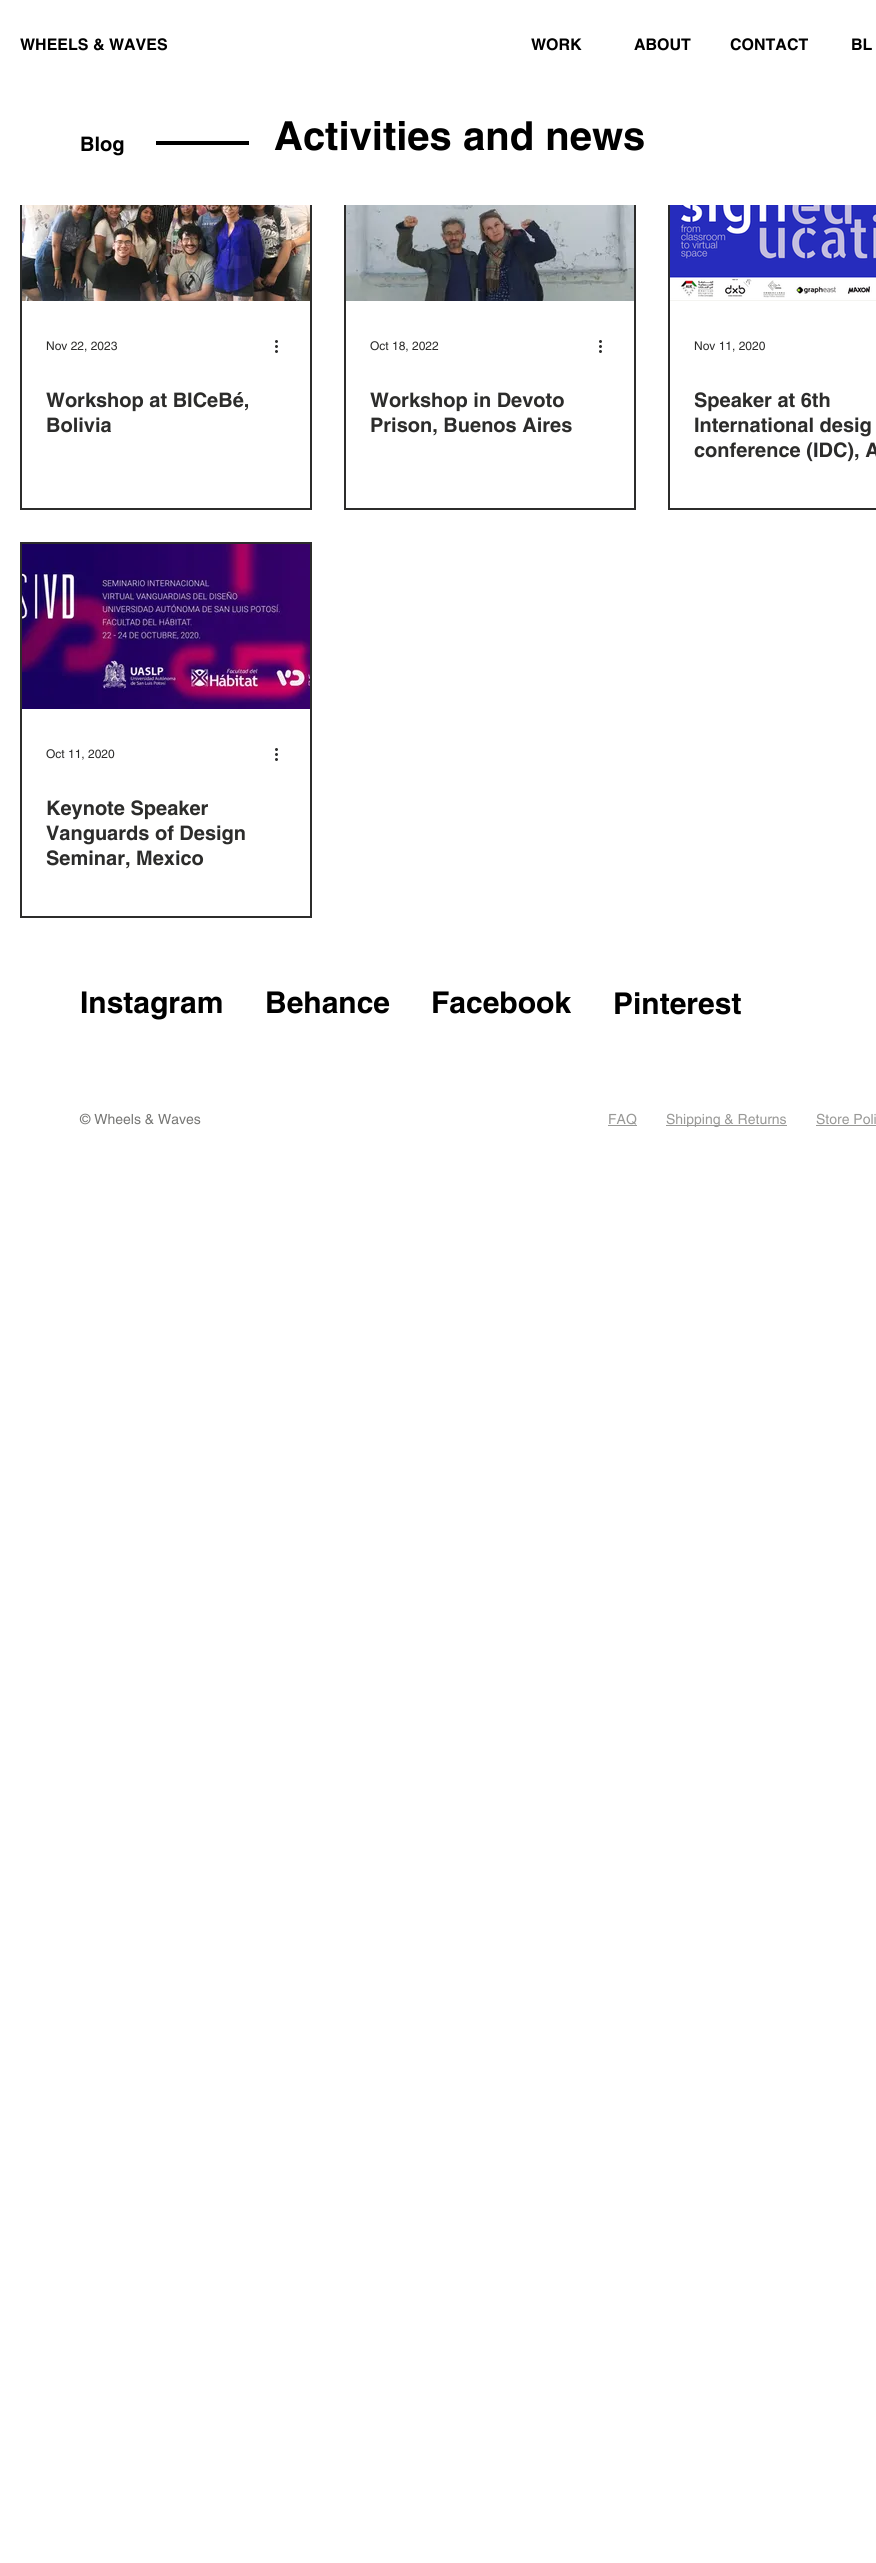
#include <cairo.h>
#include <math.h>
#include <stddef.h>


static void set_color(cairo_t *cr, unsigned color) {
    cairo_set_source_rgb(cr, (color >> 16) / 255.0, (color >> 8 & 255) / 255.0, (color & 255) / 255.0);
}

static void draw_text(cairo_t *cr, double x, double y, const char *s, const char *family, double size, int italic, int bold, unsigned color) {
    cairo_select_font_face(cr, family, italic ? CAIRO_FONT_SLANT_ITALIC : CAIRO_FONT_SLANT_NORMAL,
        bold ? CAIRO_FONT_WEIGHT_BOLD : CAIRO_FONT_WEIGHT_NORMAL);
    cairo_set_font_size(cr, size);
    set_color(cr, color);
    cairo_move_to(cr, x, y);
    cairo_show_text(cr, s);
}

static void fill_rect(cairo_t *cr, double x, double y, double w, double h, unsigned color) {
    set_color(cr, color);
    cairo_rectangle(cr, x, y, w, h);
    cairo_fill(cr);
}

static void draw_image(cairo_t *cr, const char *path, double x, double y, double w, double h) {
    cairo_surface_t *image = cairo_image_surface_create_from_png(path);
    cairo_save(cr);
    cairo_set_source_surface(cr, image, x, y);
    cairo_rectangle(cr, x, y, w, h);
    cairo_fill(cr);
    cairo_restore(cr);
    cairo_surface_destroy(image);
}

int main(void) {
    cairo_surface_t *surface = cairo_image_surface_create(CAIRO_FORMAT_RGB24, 876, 2563);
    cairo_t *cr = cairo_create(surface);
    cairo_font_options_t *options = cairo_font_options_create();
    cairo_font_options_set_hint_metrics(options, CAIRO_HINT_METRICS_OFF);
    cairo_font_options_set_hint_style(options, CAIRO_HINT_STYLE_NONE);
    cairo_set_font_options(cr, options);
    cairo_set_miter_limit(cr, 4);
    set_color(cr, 0xFFFFFF);
    cairo_paint(cr);
    draw_text(cr, 20, 50, "WHEELS & WAVES", "helvetica", 16, 0, 1, 0x000000);
    draw_text(cr, 531, 50, "WORK", "helvetica", 16, 0, 1, 0x000000);
    draw_text(cr, 634, 50, "ABOUT", "helvetica", 16, 0, 1, 0x000000);
    draw_text(cr, 730, 50, "CONTACT", "helvetica", 16, 0, 1, 0x000000);
    draw_text(cr, 851, 50, "BL", "helvetica", 16, 0, 1, 0x000000);
    cairo_rectangle(cr, 21, 135, 290, 374);
    set_color(cr, 0x2C2C2B);
    cairo_stroke(cr);
    cairo_rectangle(cr, 345, 135, 290, 374);
    cairo_stroke(cr);
    cairo_rectangle(cr, 669, 135, 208, 374);
    cairo_stroke(cr);
    fill_rect(cr, 20, 134, 856, 71, 0xFFFFFF);
    draw_text(cr, 80, 151, "Blog", "helvetica", 20, 0, 1, 0x000000);
    fill_rect(cr, 156, 141, 93, 4, 0x000000);
    draw_text(cr, 274, 150, "Activities and news", "helvetica", 40, 0, 1, 0x000000);
    draw_image(cr, "assets/img1.png", 22, 205, 288, 96);
    draw_text(cr, 46, 350, "Nov 22, 2023", "helvetica", 12, 0, 0, 0x2C2C2B);
    draw_image(cr, "assets/img2.png", 275, 340, 3, 13);
    draw_text(cr, 46, 407, "Workshop at BICeBé,", "helvetica", 20, 0, 1, 0x2C2C2B);
    draw_text(cr, 46, 432, "Bolivia", "helvetica", 20, 0, 1, 0x2C2C2B);
    draw_image(cr, "assets/img3.png", 346, 205, 288, 96);
    draw_text(cr, 370, 350, "Oct 18, 2022", "helvetica", 12, 0, 0, 0x2C2C2B);
    draw_image(cr, "assets/img2.png", 599, 340, 3, 13);
    draw_text(cr, 370, 407, "Workshop in Devoto", "helvetica", 20, 0, 1, 0x2C2C2B);
    draw_text(cr, 370, 432, "Prison, Buenos Aires", "helvetica", 20, 0, 1, 0x2C2C2B);
    draw_image(cr, "assets/img4.png", 670, 205, 206, 96);
    draw_text(cr, 694, 350, "Nov 11, 2020", "helvetica", 12, 0, 0, 0x2C2C2B);
    draw_text(cr, 694, 407, "Speaker at 6th", "helvetica", 20, 0, 1, 0x2C2C2B);
    draw_text(cr, 694, 432, "International desig", "helvetica", 20, 0, 1, 0x2C2C2B);
    draw_text(cr, 694, 457, "conference (IDC), A", "helvetica", 20, 0, 1, 0x2C2C2B);
    cairo_rectangle(cr, 21, 543, 290, 374);
    cairo_stroke(cr);
    draw_image(cr, "assets/img5.png", 22, 544, 288, 165);
    draw_text(cr, 46, 758, "Oct 11, 2020", "helvetica", 12, 0, 0, 0x2C2C2B);
    draw_image(cr, "assets/img2.png", 275, 748, 3, 13);
    draw_text(cr, 46, 815, "Keynote Speaker", "helvetica", 20, 0, 1, 0x2C2C2B);
    draw_text(cr, 46, 840, "Vanguards of Design", "helvetica", 20, 0, 1, 0x2C2C2B);
    draw_text(cr, 46, 865, "Seminar, Mexico", "helvetica", 20, 0, 1, 0x2C2C2B);
    draw_text(cr, 80, 1013, "Instagram", "helvetica", 30, 0, 1, 0x000000);
    draw_text(cr, 265, 1013, "Behance", "helvetica", 30, 0, 1, 0x000000);
    draw_text(cr, 431, 1013, "Facebook", "helvetica", 30, 0, 1, 0x000000);
    draw_text(cr, 613, 1014, "Pinterest", "helvetica", 30, 0, 1, 0x000000);
    draw_text(cr, 80, 1124, "© Wheels & Waves", "helvetica", 14, 0, 0, 0x767674);
    draw_text(cr, 608, 1124, "FAQ", "helvetica", 14, 0, 0, 0x999997);
    fill_rect(cr, 608, 1125, 29, 1, 0x999997);
    fill_rect(cr, 666, 1125, 121, 1, 0x999997);
    draw_text(cr, 666, 1124, "Shipping & Returns", "helvetica", 14, 0, 0, 0x999997);
    draw_text(cr, 816, 1124, "Store Poli", "helvetica", 14, 0, 0, 0x999997);
    fill_rect(cr, 816, 1125, 60, 1, 0x999997);
    cairo_surface_write_to_png(surface, "output.png");
    cairo_font_options_destroy(options);
    cairo_destroy(cr);
    cairo_surface_destroy(surface);
    return 0;
}
